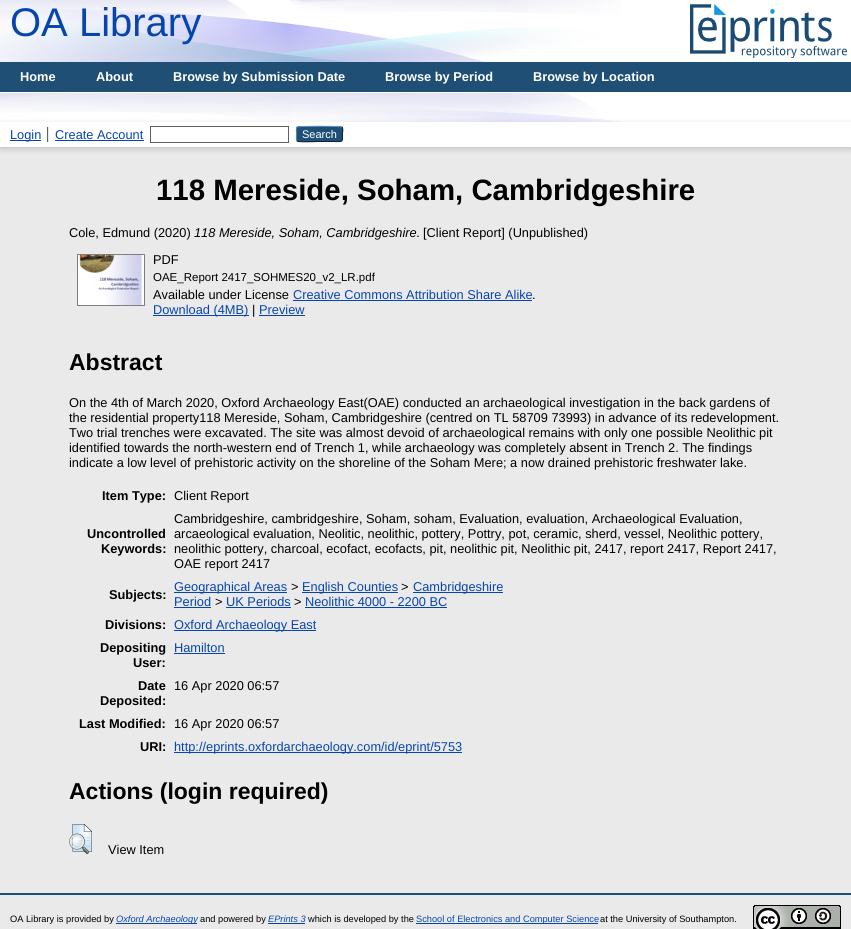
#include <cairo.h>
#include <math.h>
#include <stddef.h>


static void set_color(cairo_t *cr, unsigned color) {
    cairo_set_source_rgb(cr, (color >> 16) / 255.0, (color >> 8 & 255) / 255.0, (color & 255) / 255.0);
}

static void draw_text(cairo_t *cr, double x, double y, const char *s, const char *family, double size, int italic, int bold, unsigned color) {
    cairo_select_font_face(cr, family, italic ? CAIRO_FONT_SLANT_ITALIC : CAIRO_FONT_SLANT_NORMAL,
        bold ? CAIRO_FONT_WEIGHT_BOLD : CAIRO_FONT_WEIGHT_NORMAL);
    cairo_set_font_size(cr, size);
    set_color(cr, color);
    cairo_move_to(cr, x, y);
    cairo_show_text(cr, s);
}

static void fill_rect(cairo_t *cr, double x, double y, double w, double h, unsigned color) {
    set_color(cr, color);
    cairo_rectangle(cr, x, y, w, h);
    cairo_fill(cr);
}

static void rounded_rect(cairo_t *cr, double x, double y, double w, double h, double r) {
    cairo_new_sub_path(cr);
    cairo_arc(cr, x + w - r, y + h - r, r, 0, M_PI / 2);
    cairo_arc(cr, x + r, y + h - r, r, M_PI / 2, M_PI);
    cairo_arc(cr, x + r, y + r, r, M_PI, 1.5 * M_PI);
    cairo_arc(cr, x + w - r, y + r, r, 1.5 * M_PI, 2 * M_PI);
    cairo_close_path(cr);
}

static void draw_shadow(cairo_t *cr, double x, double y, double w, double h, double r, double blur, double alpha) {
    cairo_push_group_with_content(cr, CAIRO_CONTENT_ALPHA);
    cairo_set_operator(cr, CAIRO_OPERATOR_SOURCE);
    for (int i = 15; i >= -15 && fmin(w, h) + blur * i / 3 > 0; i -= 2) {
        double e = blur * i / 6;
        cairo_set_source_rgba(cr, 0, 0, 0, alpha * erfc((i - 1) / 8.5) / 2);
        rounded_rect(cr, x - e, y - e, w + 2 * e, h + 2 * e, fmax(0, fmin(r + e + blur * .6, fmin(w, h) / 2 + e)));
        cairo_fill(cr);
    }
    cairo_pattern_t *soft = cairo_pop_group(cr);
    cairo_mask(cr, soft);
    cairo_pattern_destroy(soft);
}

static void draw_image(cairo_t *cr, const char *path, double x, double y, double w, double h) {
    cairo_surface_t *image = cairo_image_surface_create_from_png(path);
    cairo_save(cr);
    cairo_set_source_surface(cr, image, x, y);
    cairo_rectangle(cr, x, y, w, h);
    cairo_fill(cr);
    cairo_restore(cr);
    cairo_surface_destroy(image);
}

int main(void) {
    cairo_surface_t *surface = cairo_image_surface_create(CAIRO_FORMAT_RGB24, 851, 929);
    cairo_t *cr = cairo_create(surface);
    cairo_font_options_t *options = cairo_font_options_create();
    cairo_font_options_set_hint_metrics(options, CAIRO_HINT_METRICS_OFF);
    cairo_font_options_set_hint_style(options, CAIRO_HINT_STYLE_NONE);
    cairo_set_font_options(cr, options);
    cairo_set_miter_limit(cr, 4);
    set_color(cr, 0xEAEAEA);
    cairo_paint(cr);
    fill_rect(cr, 0, 0, 851, 122, 0xFFFFFF);
    draw_image(cr, "assets/img1.png", 0, 0, 622, 122);
    draw_text(cr, 10, 36, "OA Library", "Liberation Sans", 40, 0, 0, 0x0645AD);
    draw_image(cr, "assets/img2.png", 690, 4, 157, 54);
    fill_rect(cr, 0, 62, 851, 30, 0x204F76);
    fill_rect(cr, 0, 92, 566, 1, 0xFFFFFF);
    draw_text(cr, 20, 81, "Home", "Liberation Sans", 12.8, 0, 1, 0xFFFFFF);
    draw_text(cr, 96, 81, "About", "Liberation Sans", 12.8, 0, 1, 0xFFFFFF);
    draw_text(cr, 173, 81, "Browse by Submission Date", "Liberation Sans", 12.8, 0, 1, 0xFFFFFF);
    draw_text(cr, 385, 81, "Browse by Period", "Liberation Sans", 12.8, 0, 1, 0xFFFFFF);
    draw_text(cr, 533, 81, "Browse by Location", "Liberation Sans", 12.8, 0, 1, 0xFFFFFF);
    set_color(cr, 0x646464);
    draw_shadow(cr, 0, 124, 851, 25, 0, 3, 0.3);
    fill_rect(cr, 0, 122, 851, 25, 0xFFFFFF);
    fill_rect(cr, 10, 140, 31, 1, 0x0645AD);
    draw_text(cr, 10, 139, "Login", "Liberation Sans", 12.8, 0, 0, 0x0645AD);
    fill_rect(cr, 47, 127, 1, 15, 0x606060);
    draw_text(cr, 55, 139, "Create Account", "Liberation Sans", 12.8, 0, 0, 0x0645AD);
    fill_rect(cr, 48, 127, 1, 15, 0xE8E8E8);
    fill_rect(cr, 55, 140, 89, 1, 0x0645AD);
    cairo_rectangle(cr, 150.5, 126.5, 138, 16);
    set_color(cr, 0x606060);
    cairo_set_line_width(cr, 1);
    cairo_stroke(cr);
    set_color(cr, 0x1F4F76);
    rounded_rect(cr, 296, 126, 47, 16, 3);
    cairo_fill(cr);
    cairo_new_path(cr);
    cairo_move_to(cr, 297, 127);
    cairo_curve_to(cr, 298.5, 126, 340.5, 126, 342, 127);
    set_color(cr, 0x5B97C7);
    cairo_stroke(cr);
    cairo_new_path(cr);
    cairo_move_to(cr, 342, 127);
    cairo_curve_to(cr, 343.5, 129, 342.5, 132, 342.5, 134);
    cairo_curve_to(cr, 342.5, 143, 342.5, 141.5, 333, 141.5);
    cairo_line_to(cr, 319.5, 141.5);
    cairo_curve_to(cr, 316, 141.5, 299, 142.5, 297, 141);
    set_color(cr, 0x0D2131);
    cairo_stroke(cr);
    cairo_new_path(cr);
    cairo_move_to(cr, 297, 141);
    cairo_curve_to(cr, 296, 139.5, 296.5, 135.5, 296.5, 134);
    cairo_curve_to(cr, 296.5, 132.5, 296, 128.5, 297, 127);
    set_color(cr, 0x5287B3);
    cairo_stroke(cr);
    draw_text(cr, 302, 138, "Search", "Liberation Sans", 11, 0, 0, 0xFFFFFF);
    draw_text(cr, 156, 200, "118 Mereside, Soham, Cambridgeshire", "Liberation Sans", 29.4, 0, 1, 0x000000);
    draw_text(cr, 69, 237, "Cole, Edmund (2020)", "Liberation Sans", 12.8, 0, 0, 0x000000);
    draw_text(cr, 194, 237, "118 Mereside, Soham, Cambridgeshire.", "Liberation Sans", 12.8, 1, 0, 0x000000);
    draw_text(cr, 423, 237, "[Client Report] (Unpublished)", "Liberation Sans", 12.8, 0, 0, 0x000000);
    draw_image(cr, "assets/img3.png", 77, 254, 68, 52);
    draw_text(cr, 153, 264, "PDF", "Liberation Sans", 12.8, 0, 0, 0x000000);
    draw_text(cr, 153, 281, "OAE_Report 2417_SOHMES20_v2_LR.pdf", "Liberation Sans", 11.5, 0, 0, 0x000000);
    draw_text(cr, 153, 299, "Available under License", "Liberation Sans", 12.8, 0, 0, 0x000000);
    draw_text(cr, 293, 299, "Creative Commons Attribution Share Alike", "Liberation Sans", 12.8, 0, 0, 0x0645AD);
    draw_text(cr, 532, 299, ".", "Liberation Sans", 12.8, 0, 0, 0x000000);
    fill_rect(cr, 293, 300, 239, 1, 0x0645AD);
    fill_rect(cr, 153, 315, 96, 1, 0x0645AD);
    draw_text(cr, 153, 314, "Download (4MB)", "Liberation Sans", 12.8, 0, 0, 0x0645AD);
    draw_text(cr, 252, 314, "|", "Liberation Sans", 12.8, 0, 0, 0x000000);
    draw_text(cr, 259, 314, "Preview", "Liberation Sans", 12.8, 0, 0, 0x0645AD);
    fill_rect(cr, 259, 315, 46, 1, 0x0645AD);
    draw_text(cr, 69, 370, "Abstract", "Liberation Sans", 23, 0, 1, 0x000000);
    draw_text(cr, 69, 407, "On the 4th of March 2020, Oxford Archaeology East(OAE) conducted an archaeological investigation in the back gardens of", "Liberation Sans", 12.8, 0, 0, 0x000000);
    draw_text(cr, 69, 422, "the residential property118 Mereside, Soham, Cambridgeshire (centred on TL 58709 73993) in advance of its redevelopment.", "Liberation Sans", 12.8, 0, 0, 0x000000);
    draw_text(cr, 69, 437, "Two trial trenches were excavated. The site was almost devoid of archaeological remains with only one possible Neolithic pit", "Liberation Sans", 12.8, 0, 0, 0x000000);
    draw_text(cr, 69, 452, "identified towards the north-western end of Trench 1, while archaeology was completely absent in Trench 2. The findings", "Liberation Sans", 12.8, 0, 0, 0x000000);
    draw_text(cr, 69, 467, "indicate a low level of prehistoric activity on the shoreline of the Soham Mere; a now drained prehistoric freshwater lake.", "Liberation Sans", 12.8, 0, 0, 0x000000);
    draw_text(cr, 102, 500, "Item Type:", "Liberation Sans", 12.8, 0, 1, 0x000000);
    draw_text(cr, 174, 500, "Client Report", "Liberation Sans", 12.8, 0, 0, 0x000000);
    draw_text(cr, 87, 538, "Uncontrolled", "Liberation Sans", 12.8, 0, 1, 0x000000);
    draw_text(cr, 101, 553, "Keywords:", "Liberation Sans", 12.8, 0, 1, 0x000000);
    draw_text(cr, 174, 523, "Cambridgeshire, cambridgeshire, Soham, soham, Evaluation, evaluation, Archaeological Evaluation,", "Liberation Sans", 12.8, 0, 0, 0x000000);
    draw_text(cr, 174, 538, "arcaeological evaluation, Neolitic, neolithic, pottery, Pottry, pot, ceramic, sherd, vessel, Neolithic pottery,", "Liberation Sans", 12.8, 0, 0, 0x000000);
    draw_text(cr, 174, 553, "neolithic pottery, charcoal, ecofact, ecofacts, pit, neolithic pit, Neolithic pit, 2417, report 2417, Report 2417,", "Liberation Sans", 12.8, 0, 0, 0x000000);
    draw_text(cr, 174, 568, "OAE report 2417", "Liberation Sans", 12.8, 0, 0, 0x000000);
    draw_text(cr, 109, 599, "Subjects:", "Liberation Sans", 12.8, 0, 1, 0x000000);
    fill_rect(cr, 174, 592, 113, 1, 0x0645AD);
    draw_text(cr, 174, 591, "Geographical Areas", "Liberation Sans", 12.8, 0, 0, 0x0645AD);
    draw_text(cr, 291, 591, ">", "Liberation Sans", 12.8, 0, 0, 0x000000);
    fill_rect(cr, 302, 592, 96, 1, 0x0645AD);
    draw_text(cr, 302, 591, "English Counties", "Liberation Sans", 12.8, 0, 0, 0x0645AD);
    draw_text(cr, 401, 591, ">", "Liberation Sans", 12.8, 0, 0, 0x000000);
    fill_rect(cr, 413, 592, 90, 1, 0x0645AD);
    draw_text(cr, 413, 591, "Cambridgeshire", "Liberation Sans", 12.8, 0, 0, 0x0645AD);
    draw_text(cr, 174, 606, "Period", "Liberation Sans", 12.8, 0, 0, 0x0645AD);
    fill_rect(cr, 174, 607, 37, 1, 0x0645AD);
    draw_text(cr, 215, 606, ">", "Liberation Sans", 12.8, 0, 0, 0x000000);
    draw_text(cr, 226, 606, "UK Periods", "Liberation Sans", 12.8, 0, 0, 0x0645AD);
    fill_rect(cr, 226, 607, 65, 1, 0x0645AD);
    draw_text(cr, 294, 606, ">", "Liberation Sans", 12.8, 0, 0, 0x000000);
    draw_text(cr, 305, 606, "Neolithic 4000 - 2200 BC", "Liberation Sans", 12.8, 0, 0, 0x0645AD);
    fill_rect(cr, 305, 607, 142, 1, 0x0645AD);
    draw_text(cr, 105, 629, "Divisions:", "Liberation Sans", 12.8, 0, 1, 0x000000);
    fill_rect(cr, 174, 630, 142, 1, 0x0645AD);
    draw_text(cr, 174, 629, "Oxford Archaeology East", "Liberation Sans", 12.8, 0, 0, 0x0645AD);
    draw_text(cr, 100, 652, "Depositing", "Liberation Sans", 12.8, 0, 1, 0x000000);
    draw_text(cr, 133, 667, "User:", "Liberation Sans", 12.8, 0, 1, 0x000000);
    draw_text(cr, 174, 652, "Hamilton", "Liberation Sans", 12.8, 0, 0, 0x0645AD);
    fill_rect(cr, 174, 653, 51, 1, 0x0645AD);
    draw_text(cr, 138, 690, "Date", "Liberation Sans", 12.8, 0, 1, 0x000000);
    draw_text(cr, 100, 705, "Deposited:", "Liberation Sans", 12.8, 0, 1, 0x000000);
    draw_text(cr, 174, 690, "16 Apr 2020 06:57", "Liberation Sans", 12.8, 0, 0, 0x000000);
    draw_text(cr, 79, 728, "Last Modified:", "Liberation Sans", 12.8, 0, 1, 0x000000);
    draw_text(cr, 174, 728, "16 Apr 2020 06:57", "Liberation Sans", 12.8, 0, 0, 0x000000);
    draw_text(cr, 140, 751, "URI:", "Liberation Sans", 12.8, 0, 1, 0x000000);
    fill_rect(cr, 174, 752, 288, 1, 0x0645AD);
    draw_text(cr, 174, 751, "http://eprints.oxfordarchaeology.com/id/eprint/5753", "Liberation Sans", 12.8, 0, 0, 0x0645AD);
    draw_text(cr, 69, 799, "Actions (login required)", "Liberation Sans", 23, 0, 1, 0x000000);
    draw_image(cr, "assets/img4.png", 69, 824, 23, 30);
    draw_text(cr, 108, 854, "View Item", "Liberation Sans", 12.8, 0, 0, 0x000000);
    fill_rect(cr, 0, 893, 851, 2, 0x204F76);
    draw_text(cr, 10, 922, "OA Library is provided by", "Liberation Sans", 9.25, 0, 0, 0x000000);
    fill_rect(cr, 116, 923, 81, 1, 0x0645AD);
    draw_text(cr, 116, 922, "Oxford Archaeology", "Liberation Sans", 9.25, 1, 0, 0x0645AD);
    draw_text(cr, 200, 922, "and powered by", "Liberation Sans", 9.25, 0, 0, 0x000000);
    draw_text(cr, 268, 922, "EPrints 3", "Liberation Sans", 9.25, 1, 0, 0x0645AD);
    fill_rect(cr, 268, 923, 37, 1, 0x0645AD);
    draw_text(cr, 308, 922, "which is developed by the", "Liberation Sans", 9.25, 0, 0, 0x000000);
    fill_rect(cr, 416, 923, 182, 1, 0x0645AD);
    draw_text(cr, 416, 922, "School of Electronics and Computer Science", "Liberation Sans", 9.25, 0, 0, 0x0645AD);
    draw_text(cr, 600, 922, "at the University of Southampton.", "Liberation Sans", 9.25, 0, 0, 0x000000);
    draw_image(cr, "assets/img5.png", 753, 905, 88, 24);
    cairo_surface_write_to_png(surface, "output.png");
    cairo_font_options_destroy(options);
    cairo_destroy(cr);
    cairo_surface_destroy(surface);
    return 0;
}
